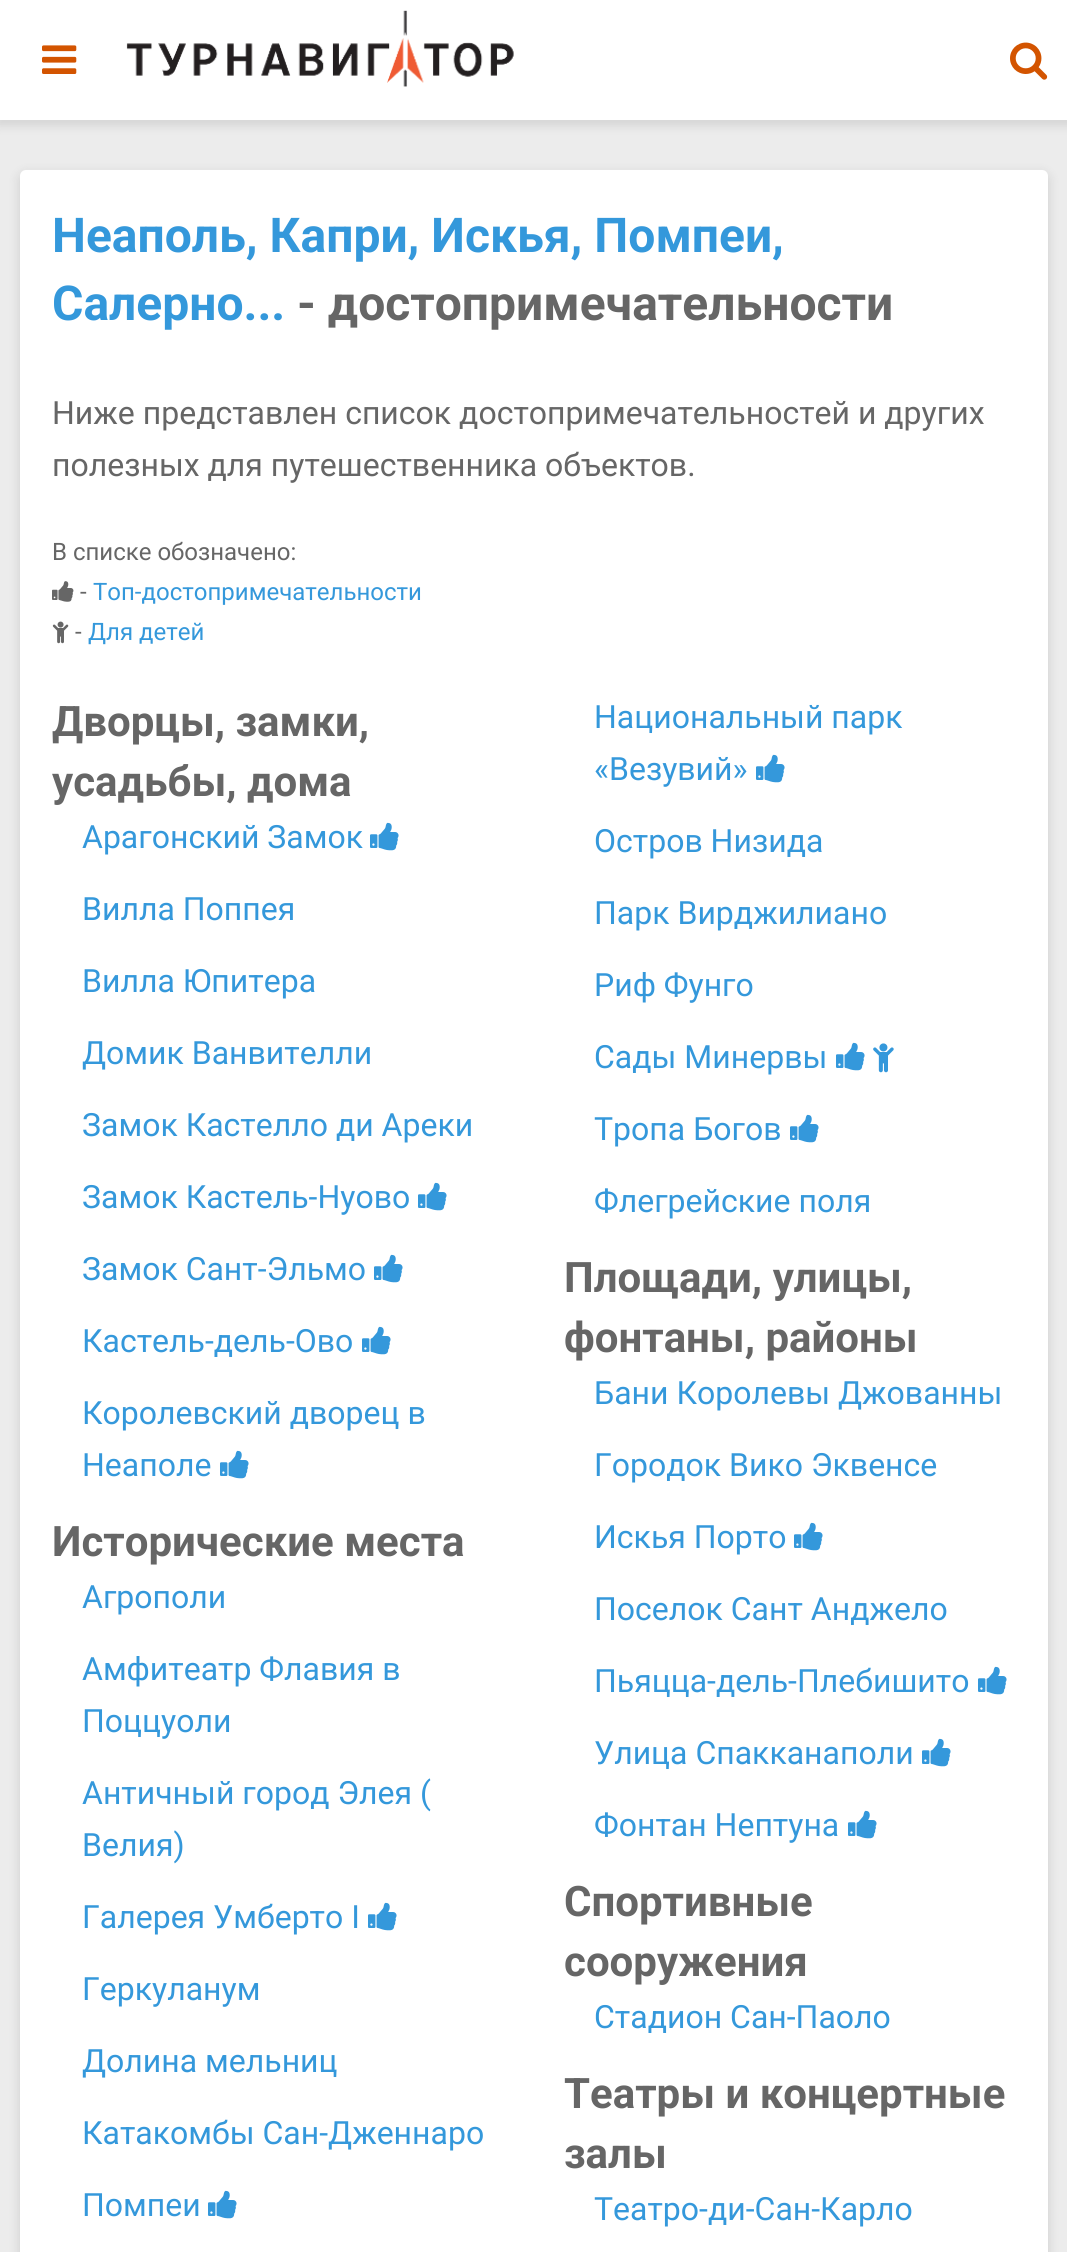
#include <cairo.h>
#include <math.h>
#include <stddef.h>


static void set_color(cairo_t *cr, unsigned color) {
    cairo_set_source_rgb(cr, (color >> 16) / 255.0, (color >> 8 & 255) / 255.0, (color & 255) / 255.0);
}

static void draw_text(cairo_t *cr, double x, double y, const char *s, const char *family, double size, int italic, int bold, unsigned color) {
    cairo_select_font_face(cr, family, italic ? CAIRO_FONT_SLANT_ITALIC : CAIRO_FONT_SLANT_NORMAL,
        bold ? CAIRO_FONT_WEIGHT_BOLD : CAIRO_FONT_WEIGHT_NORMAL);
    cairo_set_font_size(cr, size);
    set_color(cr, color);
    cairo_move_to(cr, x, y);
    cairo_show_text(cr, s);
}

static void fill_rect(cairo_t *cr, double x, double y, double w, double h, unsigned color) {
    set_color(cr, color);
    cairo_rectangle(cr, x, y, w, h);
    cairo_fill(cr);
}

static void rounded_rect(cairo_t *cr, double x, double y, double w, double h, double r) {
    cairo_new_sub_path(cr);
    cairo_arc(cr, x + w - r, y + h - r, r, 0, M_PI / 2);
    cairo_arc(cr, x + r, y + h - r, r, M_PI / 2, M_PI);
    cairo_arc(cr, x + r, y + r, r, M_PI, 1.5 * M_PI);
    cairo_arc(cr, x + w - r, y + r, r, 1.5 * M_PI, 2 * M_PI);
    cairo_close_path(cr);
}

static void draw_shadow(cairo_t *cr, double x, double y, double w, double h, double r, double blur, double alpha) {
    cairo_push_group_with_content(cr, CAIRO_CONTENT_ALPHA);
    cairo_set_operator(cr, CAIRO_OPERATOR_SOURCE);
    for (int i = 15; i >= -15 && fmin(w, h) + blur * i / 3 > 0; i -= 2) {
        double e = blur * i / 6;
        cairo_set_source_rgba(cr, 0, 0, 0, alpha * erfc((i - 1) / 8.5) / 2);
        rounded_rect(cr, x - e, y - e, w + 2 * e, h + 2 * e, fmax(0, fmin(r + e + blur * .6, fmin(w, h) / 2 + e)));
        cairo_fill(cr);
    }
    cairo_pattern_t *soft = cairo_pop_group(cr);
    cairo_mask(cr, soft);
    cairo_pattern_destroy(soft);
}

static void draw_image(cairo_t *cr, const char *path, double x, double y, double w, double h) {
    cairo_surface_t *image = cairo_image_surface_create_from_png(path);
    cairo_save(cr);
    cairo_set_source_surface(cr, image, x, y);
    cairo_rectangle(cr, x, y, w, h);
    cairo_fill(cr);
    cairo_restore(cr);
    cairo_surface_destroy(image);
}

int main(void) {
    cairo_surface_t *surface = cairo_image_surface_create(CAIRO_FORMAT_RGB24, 1067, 2252);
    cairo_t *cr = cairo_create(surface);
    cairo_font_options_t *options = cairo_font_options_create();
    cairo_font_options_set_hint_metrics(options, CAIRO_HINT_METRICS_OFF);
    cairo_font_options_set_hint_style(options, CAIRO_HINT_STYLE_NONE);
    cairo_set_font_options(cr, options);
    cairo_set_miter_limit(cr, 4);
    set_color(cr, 0xECECEC);
    cairo_paint(cr);
    set_color(cr, 0x000000);
    draw_shadow(cr, -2, 2, 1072, 124, 0, 5, 0.1);
    fill_rect(cr, 0, 0, 1067, 120, 0xFFFFFF);
    draw_image(cr, "assets/img1.png", 42, 45, 35, 29);
    draw_image(cr, "assets/img2.png", 126, 10, 388, 77);
    draw_image(cr, "assets/img3.png", 1010, 42, 38, 38);
    set_color(cr, 0x000000);
    draw_shadow(cr, 18, 172, 1032, 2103, 8, 5, 0.1);
    set_color(cr, 0xFFFFFF);
    rounded_rect(cr, 20, 170, 1028, 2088, 6);
    cairo_fill(cr);
    draw_text(cr, 52, 252, "Неаполь, Капри, Искья, Помпеи,", "Roboto", 48, 0, 1, 0x3498DB);
    draw_text(cr, 52, 320, "Салерно...", "Roboto", 48, 0, 1, 0x3498DB);
    draw_text(cr, 297, 320, "- достопримечательности", "Roboto", 48, 0, 1, 0x666666);
    draw_text(cr, 52, 424, "Ниже представлен список достопримечательностей и других", "Roboto", 32, 0, 0, 0x666666);
    draw_text(cr, 52, 476, "полезных для путешественника объектов.", "Roboto", 32, 0, 0, 0x666666);
    draw_text(cr, 52, 560, "В списке обозначено:", "Roboto", 24, 0, 0, 0x666666);
    draw_image(cr, "assets/img4.png", 52, 581, 22, 21);
    draw_text(cr, 80, 600, "-", "Roboto", 24, 0, 0, 0x666666);
    draw_text(cr, 93, 600, "Топ-достопримечательности", "Roboto", 24, 0, 0, 0x3498DB);
    draw_image(cr, "assets/img5.png", 52, 621, 17, 23);
    draw_text(cr, 75, 640, "-", "Roboto", 24, 0, 0, 0x666666);
    draw_text(cr, 88, 640, "Для детей", "Roboto", 24, 0, 0, 0x3498DB);
    draw_text(cr, 52, 736, "Дворцы, замки,", "Roboto", 42, 0, 1, 0x666666);
    draw_text(cr, 52, 796, "усадьбы, дома", "Roboto", 42, 0, 1, 0x666666);
    draw_text(cr, 594, 728, "Национальный парк", "Roboto", 32, 0, 0, 0x3498DB);
    draw_text(cr, 594, 780, "«Везувий»", "Roboto", 32, 0, 0, 0x3498DB);
    draw_image(cr, "assets/img6.png", 756, 754, 29, 29);
    draw_text(cr, 82, 848, "Арагонский Замок", "Roboto", 32, 0, 0, 0x3498DB);
    draw_image(cr, "assets/img6.png", 370, 822, 29, 29);
    draw_text(cr, 594, 852, "Остров Низида", "Roboto", 32, 0, 0, 0x3498DB);
    draw_text(cr, 82, 920, "Вилла Поппея", "Roboto", 32, 0, 0, 0x3498DB);
    draw_text(cr, 594, 924, "Парк Вирджилиано", "Roboto", 32, 0, 0, 0x3498DB);
    draw_text(cr, 82, 992, "Вилла Юпитера", "Roboto", 32, 0, 0, 0x3498DB);
    draw_text(cr, 594, 996, "Риф Фунго", "Roboto", 32, 0, 0, 0x3498DB);
    draw_text(cr, 82, 1064, "Домик Ванвителли", "Roboto", 32, 0, 0, 0x3498DB);
    draw_text(cr, 594, 1068, "Сады Минервы", "Roboto", 32, 0, 0, 0x3498DB);
    draw_image(cr, "assets/img6.png", 836, 1042, 29, 29);
    draw_image(cr, "assets/img7.png", 873, 1043, 21, 30);
    draw_text(cr, 82, 1136, "Замок Кастелло ди Ареки", "Roboto", 32, 0, 0, 0x3498DB);
    draw_text(cr, 594, 1140, "Тропа Богов", "Roboto", 32, 0, 0, 0x3498DB);
    draw_image(cr, "assets/img6.png", 790, 1114, 29, 29);
    draw_text(cr, 82, 1208, "Замок Кастель-Нуово", "Roboto", 32, 0, 0, 0x3498DB);
    draw_image(cr, "assets/img6.png", 418, 1182, 29, 29);
    draw_text(cr, 594, 1212, "Флегрейские поля", "Roboto", 32, 0, 0, 0x3498DB);
    draw_text(cr, 82, 1280, "Замок Сант-Эльмо", "Roboto", 32, 0, 0, 0x3498DB);
    draw_image(cr, "assets/img6.png", 374, 1254, 29, 29);
    draw_text(cr, 564, 1292, "Площади, улицы,", "Roboto", 42, 0, 1, 0x666666);
    draw_text(cr, 564, 1352, "фонтаны, районы", "Roboto", 42, 0, 1, 0x666666);
    draw_text(cr, 82, 1352, "Кастель-дель-Ово", "Roboto", 32, 0, 0, 0x3498DB);
    draw_image(cr, "assets/img6.png", 362, 1326, 29, 29);
    draw_text(cr, 594, 1404, "Бани Королевы Джованны", "Roboto", 32, 0, 0, 0x3498DB);
    draw_text(cr, 82, 1424, "Королевский дворец в", "Roboto", 32, 0, 0, 0x3498DB);
    draw_text(cr, 82, 1476, "Неаполе", "Roboto", 32, 0, 0, 0x3498DB);
    draw_image(cr, "assets/img6.png", 220, 1450, 29, 29);
    draw_text(cr, 594, 1476, "Городок Вико Эквенсе", "Roboto", 32, 0, 0, 0x3498DB);
    draw_text(cr, 52, 1556, "Исторические места", "Roboto", 42, 0, 1, 0x666666);
    draw_text(cr, 594, 1548, "Искья Порто", "Roboto", 32, 0, 0, 0x3498DB);
    draw_image(cr, "assets/img6.png", 794, 1522, 29, 29);
    draw_text(cr, 82, 1608, "Агрополи", "Roboto", 32, 0, 0, 0x3498DB);
    draw_text(cr, 594, 1620, "Поселок Сант Анджело", "Roboto", 32, 0, 0, 0x3498DB);
    draw_text(cr, 82, 1680, "Амфитеатр Флавия в", "Roboto", 32, 0, 0, 0x3498DB);
    draw_text(cr, 82, 1732, "Поццуоли", "Roboto", 32, 0, 0, 0x3498DB);
    draw_text(cr, 594, 1692, "Пьяцца-дель-Плебишито", "Roboto", 32, 0, 0, 0x3498DB);
    draw_image(cr, "assets/img6.png", 978, 1666, 29, 29);
    draw_text(cr, 594, 1764, "Улица Спакканаполи", "Roboto", 32, 0, 0, 0x3498DB);
    draw_image(cr, "assets/img6.png", 922, 1738, 29, 29);
    draw_text(cr, 82, 1804, "Античный город Элея (", "Roboto", 32, 0, 0, 0x3498DB);
    draw_text(cr, 82, 1856, "Велия)", "Roboto", 32, 0, 0, 0x3498DB);
    draw_text(cr, 594, 1836, "Фонтан Нептуна", "Roboto", 32, 0, 0, 0x3498DB);
    draw_image(cr, "assets/img6.png", 848, 1810, 29, 29);
    draw_text(cr, 82, 1928, "Галерея Умберто I", "Roboto", 32, 0, 0, 0x3498DB);
    draw_image(cr, "assets/img6.png", 368, 1902, 29, 29);
    draw_text(cr, 564, 1916, "Спортивные", "Roboto", 42, 0, 1, 0x666666);
    draw_text(cr, 564, 1976, "сооружения", "Roboto", 42, 0, 1, 0x666666);
    draw_text(cr, 82, 2000, "Геркуланум", "Roboto", 32, 0, 0, 0x3498DB);
    draw_text(cr, 594, 2028, "Стадион Сан-Паоло", "Roboto", 32, 0, 0, 0x3498DB);
    draw_text(cr, 82, 2072, "Долина мельниц", "Roboto", 32, 0, 0, 0x3498DB);
    draw_text(cr, 82, 2144, "Катакомбы Сан-Дженнаро", "Roboto", 32, 0, 0, 0x3498DB);
    draw_text(cr, 564, 2108, "Театры и концертные", "Roboto", 42, 0, 1, 0x666666);
    draw_text(cr, 564, 2168, "залы", "Roboto", 42, 0, 1, 0x666666);
    draw_text(cr, 82, 2216, "Помпеи", "Roboto", 32, 0, 0, 0x3498DB);
    draw_image(cr, "assets/img6.png", 208, 2190, 29, 29);
    draw_text(cr, 594, 2220, "Театро-ди-Сан-Карло", "Roboto", 32, 0, 0, 0x3498DB);
    cairo_surface_write_to_png(surface, "output.png");
    cairo_font_options_destroy(options);
    cairo_destroy(cr);
    cairo_surface_destroy(surface);
    return 0;
}
